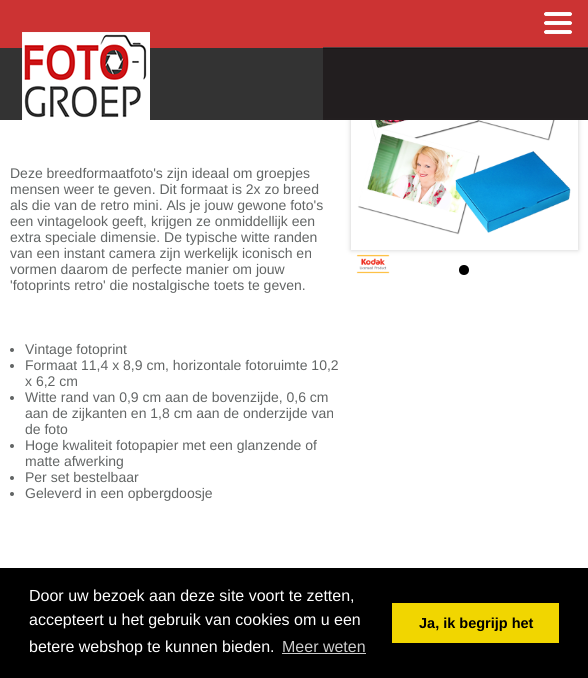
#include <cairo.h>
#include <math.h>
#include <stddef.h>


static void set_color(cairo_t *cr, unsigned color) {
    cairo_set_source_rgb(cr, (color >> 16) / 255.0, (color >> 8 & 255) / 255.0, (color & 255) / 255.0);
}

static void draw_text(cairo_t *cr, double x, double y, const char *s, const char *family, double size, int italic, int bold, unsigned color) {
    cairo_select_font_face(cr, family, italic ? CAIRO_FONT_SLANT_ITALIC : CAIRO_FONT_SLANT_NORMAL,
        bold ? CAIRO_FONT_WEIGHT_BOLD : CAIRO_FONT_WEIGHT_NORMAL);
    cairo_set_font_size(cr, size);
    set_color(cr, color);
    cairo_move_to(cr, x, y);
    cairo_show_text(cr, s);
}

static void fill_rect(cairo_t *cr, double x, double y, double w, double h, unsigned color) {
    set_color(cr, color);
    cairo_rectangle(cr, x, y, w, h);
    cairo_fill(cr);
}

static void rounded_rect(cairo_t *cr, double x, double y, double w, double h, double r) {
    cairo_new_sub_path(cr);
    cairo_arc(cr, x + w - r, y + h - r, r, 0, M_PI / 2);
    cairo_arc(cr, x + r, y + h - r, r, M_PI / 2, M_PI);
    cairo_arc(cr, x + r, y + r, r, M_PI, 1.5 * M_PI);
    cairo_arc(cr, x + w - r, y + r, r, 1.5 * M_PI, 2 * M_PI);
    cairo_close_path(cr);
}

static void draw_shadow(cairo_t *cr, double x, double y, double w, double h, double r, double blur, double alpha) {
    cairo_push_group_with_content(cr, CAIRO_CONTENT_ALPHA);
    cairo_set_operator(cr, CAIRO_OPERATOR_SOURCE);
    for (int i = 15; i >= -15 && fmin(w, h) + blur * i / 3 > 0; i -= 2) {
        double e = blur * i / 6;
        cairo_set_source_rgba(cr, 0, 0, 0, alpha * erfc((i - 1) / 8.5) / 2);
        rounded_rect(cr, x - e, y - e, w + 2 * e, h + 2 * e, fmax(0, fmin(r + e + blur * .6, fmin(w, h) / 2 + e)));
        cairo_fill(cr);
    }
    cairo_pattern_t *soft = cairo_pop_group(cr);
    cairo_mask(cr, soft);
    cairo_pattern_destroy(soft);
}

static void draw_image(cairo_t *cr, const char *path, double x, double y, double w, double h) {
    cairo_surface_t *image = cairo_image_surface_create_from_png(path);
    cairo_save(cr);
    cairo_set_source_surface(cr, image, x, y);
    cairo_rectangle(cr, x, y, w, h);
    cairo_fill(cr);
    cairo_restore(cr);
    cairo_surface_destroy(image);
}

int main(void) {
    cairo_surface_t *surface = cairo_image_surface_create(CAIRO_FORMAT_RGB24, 588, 678);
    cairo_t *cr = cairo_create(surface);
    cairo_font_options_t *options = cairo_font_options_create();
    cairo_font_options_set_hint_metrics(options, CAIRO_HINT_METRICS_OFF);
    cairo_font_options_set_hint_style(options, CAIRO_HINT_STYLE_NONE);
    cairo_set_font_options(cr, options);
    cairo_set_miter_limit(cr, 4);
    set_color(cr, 0xFFFFFF);
    cairo_paint(cr);
    cairo_save(cr);
    cairo_set_fill_rule(cr, CAIRO_FILL_RULE_EVEN_ODD);
    cairo_new_path(cr);
    cairo_move_to(cr, 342, 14);
    cairo_line_to(cr, 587, 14);
    cairo_line_to(cr, 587, 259);
    cairo_line_to(cr, 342, 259);
    cairo_close_path(cr);
    cairo_move_to(cr, 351, 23);
    cairo_line_to(cr, 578, 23);
    cairo_line_to(cr, 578, 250);
    cairo_line_to(cr, 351, 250);
    cairo_close_path(cr);
    cairo_clip(cr);
    set_color(cr, 0xCCCCCC);
    draw_shadow(cr, 351, 23, 227, 227, 0, 2.5, 1);
    cairo_restore(cr);
    draw_image(cr, "assets/img1.png", 0, 0, 588, 120);
    draw_image(cr, "assets/img2.png", 544, 12, 28, 22);
    draw_image(cr, "assets/img3.png", 0, 32, 323, 88);
    draw_text(cr, 10, 178, "Deze breedformaatfoto's zijn ideaal om groepjes", "Liberation Sans", 14, 0, 0, 0x626565);
    draw_text(cr, 10, 194, "mensen weer te geven. Dit formaat is 2x zo breed", "Liberation Sans", 14, 0, 0, 0x626565);
    draw_text(cr, 10, 210, "als die van de retro mini. Als je jouw gewone foto's", "Liberation Sans", 14, 0, 0, 0x626565);
    draw_text(cr, 10, 226, "een vintagelook geeft, krijgen ze onmiddellijk een", "Liberation Sans", 14, 0, 0, 0x626565);
    draw_text(cr, 10, 242, "extra speciale dimensie. De typische witte randen", "Liberation Sans", 14, 0, 0, 0x626565);
    draw_text(cr, 10, 258, "van een instant camera zijn werkelijk iconisch en", "Liberation Sans", 14, 0, 0, 0x626565);
    draw_text(cr, 10, 274, "vormen daarom de perfecte manier om jouw", "Liberation Sans", 14, 0, 0, 0x626565);
    draw_text(cr, 10, 290, "'fotoprints retro' die nostalgische toets te geven.", "Liberation Sans", 14, 0, 0, 0x626565);
    cairo_new_path(cr);
    cairo_arc(cr, 12, 350, 2, 0, 2 * M_PI);
    cairo_fill(cr);
    draw_text(cr, 25, 354, "Vintage fotoprint", "Liberation Sans", 14, 0, 0, 0x626565);
    cairo_new_path(cr);
    cairo_arc(cr, 12, 366, 2, 0, 2 * M_PI);
    cairo_fill(cr);
    draw_text(cr, 25, 370, "Formaat 11,4 x 8,9 cm, horizontale fotoruimte 10,2", "Liberation Sans", 14, 0, 0, 0x626565);
    draw_text(cr, 25, 386, "x 6,2 cm", "Liberation Sans", 14, 0, 0, 0x626565);
    cairo_new_path(cr);
    cairo_arc(cr, 12, 398, 2, 0, 2 * M_PI);
    cairo_fill(cr);
    draw_text(cr, 25, 402, "Witte rand van 0,9 cm aan de bovenzijde, 0,6 cm", "Liberation Sans", 14, 0, 0, 0x626565);
    draw_text(cr, 25, 418, "aan de zijkanten en 1,8 cm aan de onderzijde van", "Liberation Sans", 14, 0, 0, 0x626565);
    draw_text(cr, 25, 434, "de foto", "Liberation Sans", 14, 0, 0, 0x626565);
    cairo_new_path(cr);
    cairo_arc(cr, 12, 446, 2, 0, 2 * M_PI);
    cairo_fill(cr);
    draw_text(cr, 25, 450, "Hoge kwaliteit fotopapier met een glanzende of", "Liberation Sans", 14, 0, 0, 0x626565);
    draw_text(cr, 25, 466, "matte afwerking", "Liberation Sans", 14, 0, 0, 0x626565);
    cairo_new_path(cr);
    cairo_arc(cr, 12, 478, 2, 0, 2 * M_PI);
    cairo_fill(cr);
    draw_text(cr, 25, 482, "Per set bestelbaar", "Liberation Sans", 14, 0, 0, 0x626565);
    cairo_new_path(cr);
    cairo_arc(cr, 12, 494, 2, 0, 2 * M_PI);
    cairo_fill(cr);
    draw_text(cr, 25, 498, "Geleverd in een opbergdoosje", "Liberation Sans", 14, 0, 0, 0x626565);
    draw_image(cr, "assets/img4.png", 357, 120, 214, 115);
    set_color(cr, 0x000000);
    cairo_arc(cr, 464, 270, 5, 0, 2 * M_PI);
    cairo_fill(cr);
    draw_image(cr, "assets/img5.png", 356, 254, 34, 20);
    fill_rect(cr, 0, 568, 588, 110, 0x000000);
    draw_text(cr, 29, 601, "Door uw bezoek aan deze site voort te zetten,", "Liberation Sans", 16, 0, 0, 0xFFFFFF);
    draw_text(cr, 29, 625, "accepteert u het gebruik van cookies om u een", "Liberation Sans", 16, 0, 0, 0xFFFFFF);
    draw_text(cr, 29, 652, "betere webshop te kunnen bieden.", "Liberation Sans", 16, 0, 0, 0xFFFFFF);
    draw_text(cr, 282, 652, "Meer weten", "Liberation Sans", 16, 0, 0, 0xCCCCCC);
    fill_rect(cr, 282, 653, 84, 1, 0xCCCCCC);
    fill_rect(cr, 392, 603, 167, 40, 0xF1D600);
    draw_text(cr, 419, 628, "Ja, ik begrijp het", "Liberation Sans", 14.5, 0, 1, 0x000000);
    cairo_surface_write_to_png(surface, "output.png");
    cairo_font_options_destroy(options);
    cairo_destroy(cr);
    cairo_surface_destroy(surface);
    return 0;
}
